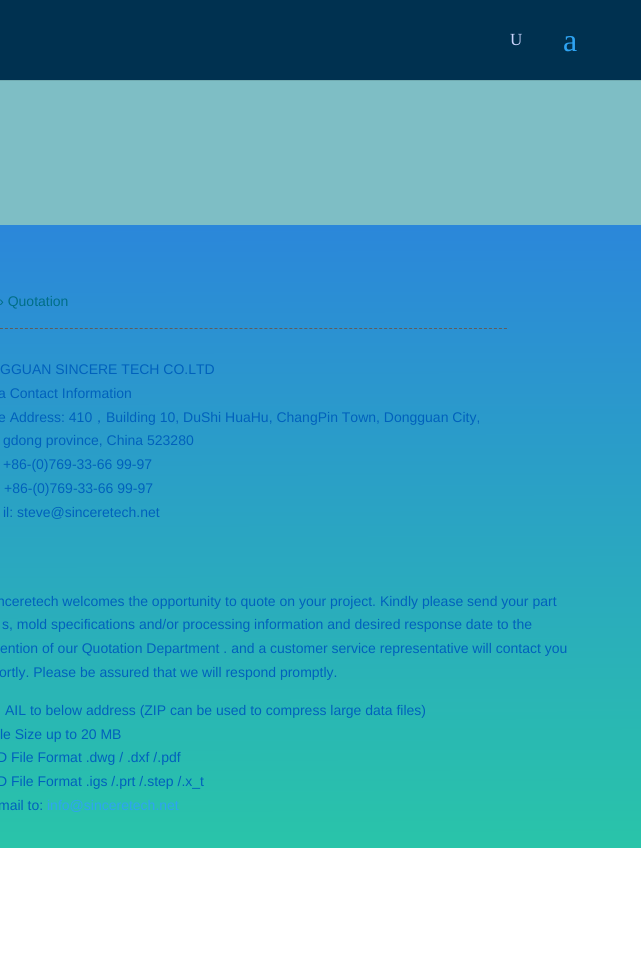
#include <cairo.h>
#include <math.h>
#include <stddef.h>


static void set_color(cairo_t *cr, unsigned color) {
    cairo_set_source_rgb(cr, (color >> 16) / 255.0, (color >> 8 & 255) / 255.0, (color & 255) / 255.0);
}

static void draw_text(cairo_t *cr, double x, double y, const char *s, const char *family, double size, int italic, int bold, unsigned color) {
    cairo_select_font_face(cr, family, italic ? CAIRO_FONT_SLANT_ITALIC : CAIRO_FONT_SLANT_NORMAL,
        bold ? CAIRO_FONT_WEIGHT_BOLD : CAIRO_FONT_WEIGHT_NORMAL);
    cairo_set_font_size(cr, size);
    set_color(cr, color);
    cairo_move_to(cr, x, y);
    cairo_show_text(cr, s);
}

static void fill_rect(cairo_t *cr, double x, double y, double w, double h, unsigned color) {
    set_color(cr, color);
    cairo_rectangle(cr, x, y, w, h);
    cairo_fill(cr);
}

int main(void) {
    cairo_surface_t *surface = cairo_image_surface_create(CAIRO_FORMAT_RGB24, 641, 974);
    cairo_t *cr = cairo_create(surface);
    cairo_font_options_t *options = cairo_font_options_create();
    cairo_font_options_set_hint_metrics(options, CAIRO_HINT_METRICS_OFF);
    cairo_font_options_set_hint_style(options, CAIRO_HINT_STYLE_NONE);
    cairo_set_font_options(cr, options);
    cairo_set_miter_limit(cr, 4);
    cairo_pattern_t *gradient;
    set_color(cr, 0xFFFFFF);
    cairo_paint(cr);
    fill_rect(cr, 0, 80, 641, 1, 0x71ABB1);
    fill_rect(cr, 0, 0, 641, 80, 0x003150);
    draw_text(cr, 510, 45, "U", "Liberation Serif", 17, 0, 0, 0xCAD4FC);
    draw_text(cr, 563, 51, "a", "Liberation Serif", 32, 0, 0, 0x2EA3F2);
    fill_rect(cr, 0, 81, 641, 144, 0x7EBEC5);
    gradient = cairo_pattern_create_linear(320, 225, 321, 848);
    cairo_pattern_add_color_stop_rgba(gradient, 0, 0.169, 0.529, 0.855, 1);
    cairo_pattern_add_color_stop_rgba(gradient, 1, 0.161, 0.769, 0.663, 1);
    cairo_set_source(cr, gradient);
    cairo_pattern_destroy(gradient);
    cairo_rectangle(cr, 0, 225, 641, 623);
    cairo_fill(cr);
    cairo_new_path(cr);
    cairo_move_to(cr, -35, 328.5);
    cairo_line_to(cr, 507, 328.5);
    set_color(cr, 0x5E5E5E);
    cairo_set_line_width(cr, 1);
    cairo_set_dash(cr, (double[]){3, 1.99}, 2, 0);
    cairo_stroke(cr);
    draw_text(cr, -4, 306, "» Quotation", "Liberation Sans", 14, 0, 0, 0x006E87);
    draw_text(cr, 0, 374, "GGUAN SINCERE TECH CO.LTD", "Liberation Sans", 14, 0, 0, 0x0061BC);
    draw_text(cr, -2, 398, "a Contact Information", "Liberation Sans", 14, 0, 0, 0x0061BC);
    draw_text(cr, -2, 422, "e Address: 410", "Liberation Sans", 14, 0, 0, 0x0061BC);
    draw_text(cr, 92, 422, "，", "WenQuanYi Zen Hei Medium", 14, 0, 0, 0x0061BC);
    draw_text(cr, 106, 422, "Building 10, DuShi HuaHu, ChangPin Town, Dongguan City,", "Liberation Sans", 14, 0, 0, 0x0061BC);
    draw_text(cr, 3, 445, "gdong province, China 523280", "Liberation Sans", 14, 0, 0, 0x0061BC);
    draw_text(cr, 3, 469, "+86-(0)769-33-66 99-97", "Liberation Sans", 14, 0, 0, 0x0061BC);
    draw_text(cr, 4, 493, "+86-(0)769-33-66 99-97", "Liberation Sans", 14, 0, 0, 0x0061BC);
    draw_text(cr, 3, 517, "il: steve@sinceretech.net", "Liberation Sans", 14, 0, 0, 0x0061BC);
    draw_text(cr, -3, 606, "nceretech welcomes the opportunity to quote on your project. Kindly please send your part", "Liberation Sans", 14, 0, 0, 0x0061BC);
    draw_text(cr, 2, 629, "s, mold specifications and/or processing information and desired response date to the", "Liberation Sans", 14, 0, 0, 0x0061BC);
    draw_text(cr, 0, 653, "ention of our Quotation Department . and a customer service representative will contact you", "Liberation Sans", 14, 0, 0, 0x0061BC);
    draw_text(cr, -1, 677, "ortly. Please be assured that we will respond promptly.", "Liberation Sans", 14, 0, 0, 0x0061BC);
    draw_text(cr, 5, 715, "AIL to below address (ZIP can be used to compress large data files)", "Liberation Sans", 14, 0, 0, 0x0061BC);
    draw_text(cr, 0, 739, "le Size up to 20 MB", "Liberation Sans", 14, 0, 0, 0x0061BC);
    draw_text(cr, -3, 762, "D File Format .dwg / .dxf /.pdf", "Liberation Sans", 14, 0, 0, 0x0061BC);
    draw_text(cr, -3, 786, "D File Format .igs /.prt /.step /.x_t", "Liberation Sans", 14, 0, 0, 0x0061BC);
    draw_text(cr, -2, 810, "mail to:", "Liberation Sans", 14, 0, 0, 0x0061BC);
    draw_text(cr, 47, 810, "info@sinceretech.net", "Liberation Sans", 14, 0, 0, 0x2EA3F2);
    cairo_surface_write_to_png(surface, "output.png");
    cairo_font_options_destroy(options);
    cairo_destroy(cr);
    cairo_surface_destroy(surface);
    return 0;
}
